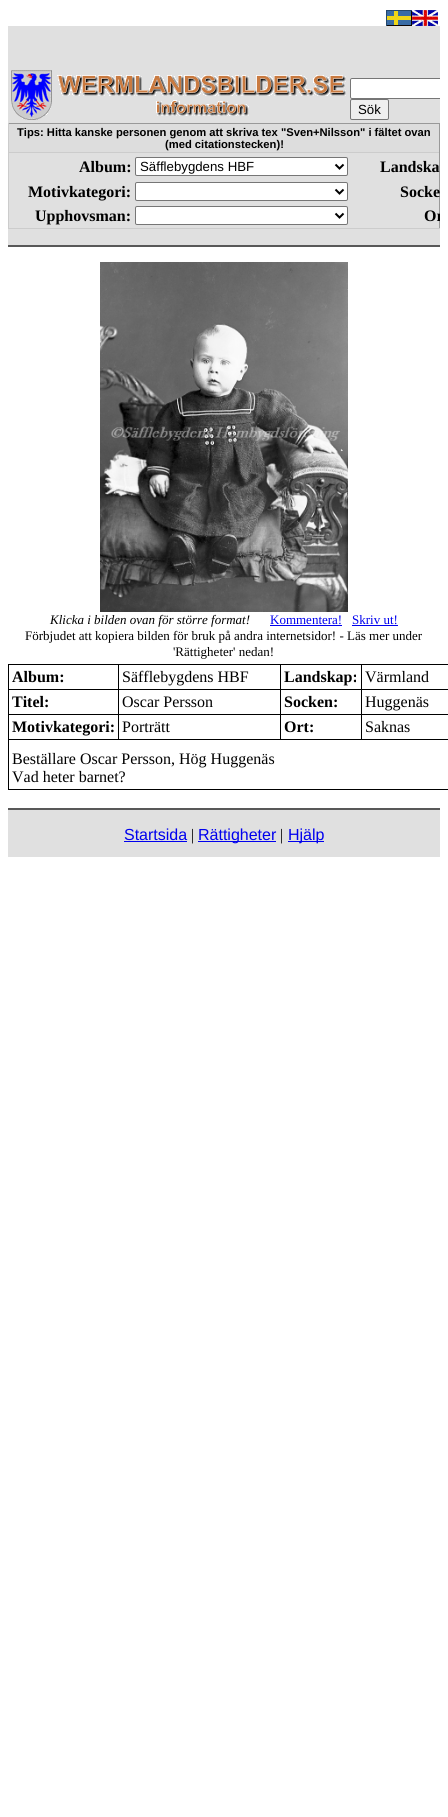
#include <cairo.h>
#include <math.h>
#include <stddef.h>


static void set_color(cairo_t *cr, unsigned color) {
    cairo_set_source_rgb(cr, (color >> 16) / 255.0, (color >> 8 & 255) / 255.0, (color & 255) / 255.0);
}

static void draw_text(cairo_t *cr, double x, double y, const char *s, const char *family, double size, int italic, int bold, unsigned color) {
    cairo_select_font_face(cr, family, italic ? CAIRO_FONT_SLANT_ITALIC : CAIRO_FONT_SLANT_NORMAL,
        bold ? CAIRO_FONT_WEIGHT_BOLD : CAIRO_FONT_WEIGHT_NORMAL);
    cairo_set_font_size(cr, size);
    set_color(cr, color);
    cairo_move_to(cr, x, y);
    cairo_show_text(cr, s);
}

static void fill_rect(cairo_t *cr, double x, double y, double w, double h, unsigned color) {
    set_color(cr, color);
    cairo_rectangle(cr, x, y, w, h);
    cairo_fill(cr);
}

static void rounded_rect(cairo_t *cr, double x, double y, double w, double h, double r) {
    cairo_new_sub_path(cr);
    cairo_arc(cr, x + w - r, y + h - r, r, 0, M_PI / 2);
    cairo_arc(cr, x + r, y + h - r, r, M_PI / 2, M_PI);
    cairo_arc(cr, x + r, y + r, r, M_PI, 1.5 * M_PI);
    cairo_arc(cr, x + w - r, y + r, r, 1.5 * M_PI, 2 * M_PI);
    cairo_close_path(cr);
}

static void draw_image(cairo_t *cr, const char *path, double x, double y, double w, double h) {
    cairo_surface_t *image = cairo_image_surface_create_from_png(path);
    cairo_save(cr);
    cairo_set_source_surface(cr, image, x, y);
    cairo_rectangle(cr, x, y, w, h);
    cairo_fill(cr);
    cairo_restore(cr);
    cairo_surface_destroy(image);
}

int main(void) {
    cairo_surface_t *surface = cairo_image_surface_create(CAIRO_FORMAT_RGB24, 448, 1817);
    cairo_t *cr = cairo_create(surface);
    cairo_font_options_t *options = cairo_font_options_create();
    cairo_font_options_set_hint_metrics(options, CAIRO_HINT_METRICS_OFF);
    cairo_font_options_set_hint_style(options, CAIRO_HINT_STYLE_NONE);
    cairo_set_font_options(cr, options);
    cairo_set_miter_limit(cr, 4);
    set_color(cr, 0xFFFFFF);
    cairo_paint(cr);
    fill_rect(cr, 8, 26, 432, 219, 0xE0E0E0);
    fill_rect(cr, 8, 245, 432, 2, 0x585858);
    draw_image(cr, "assets/img1.png", 386, 10, 26, 16);
    draw_image(cr, "assets/img2.png", 412, 10, 26, 16);
    draw_image(cr, "assets/img3.png", 11, 70, 335, 50);
    set_color(cr, 0xFFFFFF);
    cairo_new_path(cr);
    cairo_move_to(cr, 352, 78);
    cairo_line_to(cr, 440, 78);
    cairo_line_to(cr, 440, 99);
    cairo_line_to(cr, 352, 99);
    cairo_curve_to(cr, 351, 99, 350, 98, 350, 97);
    cairo_line_to(cr, 350, 80);
    cairo_curve_to(cr, 350, 79, 351, 78, 352, 78);
    cairo_close_path(cr);
    cairo_fill(cr);
    cairo_save(cr);
    cairo_rectangle(cr, 8, 26, 432, 219);
    cairo_clip(cr);
    rounded_rect(cr, 350.5, 78.5, 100, 20, 1.5);
    set_color(cr, 0x767676);
    cairo_set_line_width(cr, 1);
    cairo_stroke(cr);
    cairo_restore(cr);
    set_color(cr, 0xEFEFEF);
    rounded_rect(cr, 350.5, 99.5, 38, 20, 1.5);
    cairo_fill_preserve(cr);
    set_color(cr, 0x767676);
    cairo_set_line_width(cr, 1);
    cairo_stroke(cr);
    draw_text(cr, 358, 114, "Sök", "Liberation Sans", 13.25, 0, 0, 0x000000);
    fill_rect(cr, 8, 123, 432, 1, 0x999999);
    fill_rect(cr, 439, 123, 1, 106, 0x999999);
    fill_rect(cr, 8, 228, 432, 1, 0xCCCCCC);
    fill_rect(cr, 8, 123, 1, 106, 0xCCCCCC);
    fill_rect(cr, 9, 124, 430, 28, 0xDDDDDD);
    fill_rect(cr, 9, 152, 430, 1, 0xCCCCCC);
    draw_text(cr, 17, 136, "Tips: Hitta kanske personen genom att skriva tex \"Sven+Nilsson\" i fältet ovan", "Liberation Sans", 11.2, 0, 1, 0x000000);
    draw_text(cr, 165, 148, "(med citationstecken)!", "Liberation Sans", 11.2, 0, 1, 0x000000);
    draw_text(cr, 79, 172, "Album:", "Liberation Serif", 16, 0, 1, 0x000000);
    set_color(cr, 0xFFFFFF);
    rounded_rect(cr, 135.5, 157.5, 212, 18, 1.5);
    cairo_fill_preserve(cr);
    set_color(cr, 0x767676);
    cairo_stroke(cr);
    cairo_new_path(cr);
    cairo_move_to(cr, 335.5, 164.5);
    cairo_line_to(cr, 339.5, 168.5);
    cairo_line_to(cr, 343.5, 164.5);
    set_color(cr, 0x000000);
    cairo_set_line_width(cr, 2);
    cairo_stroke(cr);
    draw_text(cr, 140, 171, "Säfflebygdens HBF", "Liberation Sans", 13.25, 0, 0, 0x000000);
    draw_text(cr, 380, 172, "Landska", "Liberation Serif", 16, 0, 1, 0x000000);
    draw_text(cr, 28, 197, "Motivkategori:", "Liberation Serif", 16, 0, 1, 0x000000);
    set_color(cr, 0xFFFFFF);
    rounded_rect(cr, 135.5, 182.5, 212, 18, 1.5);
    cairo_fill_preserve(cr);
    set_color(cr, 0x767676);
    cairo_set_line_width(cr, 1);
    cairo_stroke(cr);
    cairo_new_path(cr);
    cairo_move_to(cr, 335.5, 189.5);
    cairo_line_to(cr, 339.5, 193.5);
    cairo_line_to(cr, 343.5, 189.5);
    set_color(cr, 0x000000);
    cairo_set_line_width(cr, 2);
    cairo_stroke(cr);
    draw_text(cr, 400, 197, "Socke", "Liberation Serif", 16, 0, 1, 0x000000);
    draw_text(cr, 35, 221, "Upphovsman:", "Liberation Serif", 16, 0, 1, 0x000000);
    set_color(cr, 0xFFFFFF);
    rounded_rect(cr, 135.5, 206.5, 212, 18, 1.5);
    cairo_fill_preserve(cr);
    set_color(cr, 0x767676);
    cairo_set_line_width(cr, 1);
    cairo_stroke(cr);
    cairo_new_path(cr);
    cairo_move_to(cr, 335.5, 213.5);
    cairo_line_to(cr, 339.5, 217.5);
    cairo_line_to(cr, 343.5, 213.5);
    set_color(cr, 0x000000);
    cairo_set_line_width(cr, 2);
    cairo_stroke(cr);
    cairo_save(cr);
    cairo_rectangle(cr, 8, 26, 432, 219);
    cairo_clip(cr);
    draw_text(cr, 424, 221, "Or", "Liberation Serif", 16, 0, 1, 0x000000);
    cairo_restore(cr);
    draw_image(cr, "assets/img4.png", 100, 262, 248, 350);
    draw_text(cr, 50, 624, "Klicka i bilden ovan för större format!", "Liberation Serif", 13, 1, 0, 0x000000);
    draw_text(cr, 270, 624, "Kommentera!", "Liberation Serif", 13, 0, 0, 0x0000EE);
    fill_rect(cr, 270, 625, 72, 1, 0x0000EE);
    draw_text(cr, 352, 624, "Skriv ut!", "Liberation Serif", 13, 0, 0, 0x0000EE);
    fill_rect(cr, 352, 625, 46, 1, 0x0000EE);
    draw_text(cr, 25, 640, "Förbjudet att kopiera bilden för bruk på andra internetsidor! - Läs mer under", "Liberation Serif", 13, 0, 0, 0x000000);
    draw_text(cr, 173, 656, "'Rättigheter' nedan!", "Liberation Serif", 13, 0, 0, 0x000000);
    fill_rect(cr, 8, 664, 440, 1, 0x000000);
    fill_rect(cr, 8, 789, 440, 1, 0x000000);
    fill_rect(cr, 8, 664, 1, 126, 0x000000);
    draw_text(cr, 12, 682, "Album:", "Liberation Serif", 16, 0, 1, 0x000000);
    draw_text(cr, 122, 682, "Säfflebygdens HBF", "Liberation Serif", 16, 0, 0, 0x000000);
    draw_text(cr, 284, 682, "Landskap:", "Liberation Serif", 16, 0, 1, 0x000000);
    draw_text(cr, 365, 682, "Värmland", "Liberation Serif", 16, 0, 0, 0x000000);
    fill_rect(cr, 9, 689, 439, 1, 0x000000);
    draw_text(cr, 12, 707, "Titel:", "Liberation Serif", 16, 0, 1, 0x000000);
    draw_text(cr, 122, 707, "Oscar Persson", "Liberation Serif", 16, 0, 0, 0x000000);
    draw_text(cr, 284, 707, "Socken:", "Liberation Serif", 16, 0, 1, 0x000000);
    draw_text(cr, 365, 707, "Huggenäs", "Liberation Serif", 16, 0, 0, 0x000000);
    fill_rect(cr, 9, 714, 439, 1, 0x000000);
    fill_rect(cr, 9, 739, 439, 1, 0x000000);
    fill_rect(cr, 118, 665, 1, 75, 0x000000);
    draw_text(cr, 12, 732, "Motivkategori:", "Liberation Serif", 16, 0, 1, 0x000000);
    fill_rect(cr, 280, 665, 1, 75, 0x000000);
    draw_text(cr, 122, 732, "Porträtt", "Liberation Serif", 16, 0, 0, 0x000000);
    fill_rect(cr, 361, 665, 1, 75, 0x000000);
    draw_text(cr, 284, 732, "Ort:", "Liberation Serif", 16, 0, 1, 0x000000);
    draw_text(cr, 365, 732, "Saknas", "Liberation Serif", 16, 0, 0, 0x000000);
    draw_text(cr, 12, 764, "Beställare Oscar Persson, Hög Huggenäs", "Liberation Serif", 16, 0, 0, 0x000000);
    draw_text(cr, 12, 782, "Vad heter barnet?", "Liberation Serif", 16, 0, 0, 0x000000);
    fill_rect(cr, 8, 810, 432, 47, 0xE0E0E0);
    fill_rect(cr, 8, 808, 432, 2, 0x585858);
    draw_text(cr, 124, 840, "Startsida", "Liberation Sans", 16, 0, 0, 0x0000EE);
    fill_rect(cr, 124, 841, 63, 1, 0x0000EE);
    draw_text(cr, 191, 840, "|", "Liberation Serif", 16, 0, 0, 0x000000);
    fill_rect(cr, 198, 841, 78, 1, 0x0000EE);
    draw_text(cr, 198, 840, "Rättigheter", "Liberation Sans", 16, 0, 0, 0x0000EE);
    draw_text(cr, 280, 840, "|", "Liberation Serif", 16, 0, 0, 0x000000);
    fill_rect(cr, 288, 841, 36, 1, 0x0000EE);
    draw_text(cr, 288, 840, "Hjälp", "Liberation Sans", 16, 0, 0, 0x0000EE);
    cairo_surface_write_to_png(surface, "output.png");
    cairo_font_options_destroy(options);
    cairo_destroy(cr);
    cairo_surface_destroy(surface);
    return 0;
}
